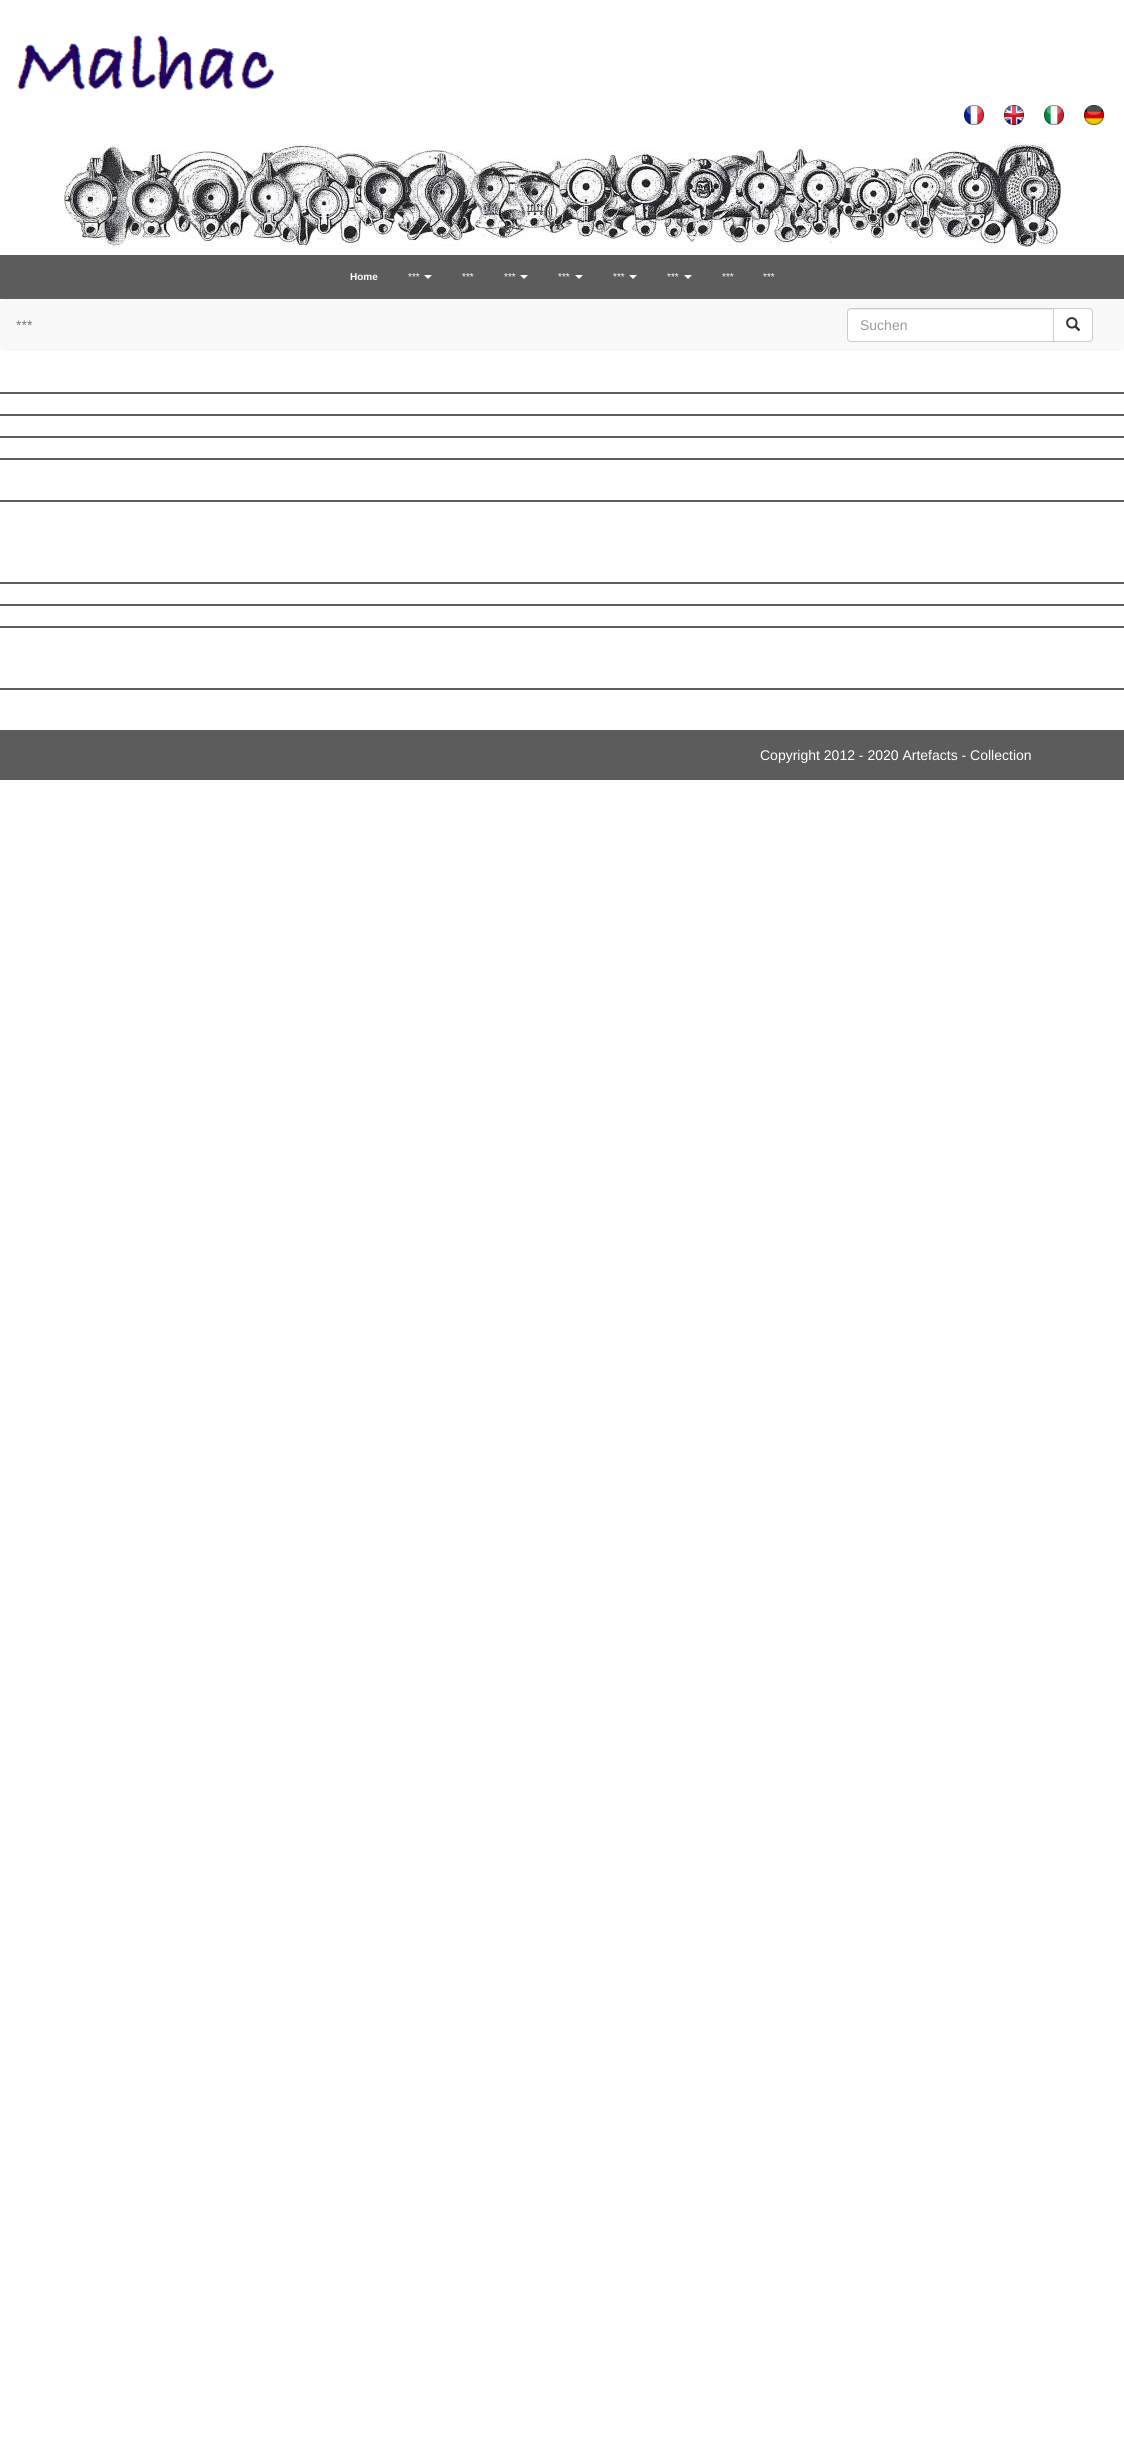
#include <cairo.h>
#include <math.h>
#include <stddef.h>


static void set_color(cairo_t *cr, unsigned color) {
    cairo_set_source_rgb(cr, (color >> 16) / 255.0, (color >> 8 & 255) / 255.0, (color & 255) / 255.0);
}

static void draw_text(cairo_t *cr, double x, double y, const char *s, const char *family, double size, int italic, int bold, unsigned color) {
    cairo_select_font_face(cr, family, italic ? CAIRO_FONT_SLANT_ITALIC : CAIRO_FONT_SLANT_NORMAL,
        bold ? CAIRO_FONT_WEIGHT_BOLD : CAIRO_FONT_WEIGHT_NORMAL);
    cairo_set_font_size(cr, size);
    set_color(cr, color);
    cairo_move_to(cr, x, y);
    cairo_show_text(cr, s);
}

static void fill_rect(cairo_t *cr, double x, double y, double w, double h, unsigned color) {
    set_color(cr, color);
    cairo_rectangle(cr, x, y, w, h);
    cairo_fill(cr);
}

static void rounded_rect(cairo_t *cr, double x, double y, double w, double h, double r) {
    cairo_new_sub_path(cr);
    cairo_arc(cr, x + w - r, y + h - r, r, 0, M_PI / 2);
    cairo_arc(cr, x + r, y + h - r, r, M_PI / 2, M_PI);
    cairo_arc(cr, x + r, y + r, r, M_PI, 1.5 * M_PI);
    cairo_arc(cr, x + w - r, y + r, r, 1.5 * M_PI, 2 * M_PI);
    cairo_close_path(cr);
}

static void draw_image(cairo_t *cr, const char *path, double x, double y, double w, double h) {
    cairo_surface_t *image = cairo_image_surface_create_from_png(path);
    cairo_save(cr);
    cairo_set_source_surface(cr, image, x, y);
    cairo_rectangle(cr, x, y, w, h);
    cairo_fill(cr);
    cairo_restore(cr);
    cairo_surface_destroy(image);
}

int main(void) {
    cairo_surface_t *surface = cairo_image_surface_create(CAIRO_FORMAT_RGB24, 1124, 2460);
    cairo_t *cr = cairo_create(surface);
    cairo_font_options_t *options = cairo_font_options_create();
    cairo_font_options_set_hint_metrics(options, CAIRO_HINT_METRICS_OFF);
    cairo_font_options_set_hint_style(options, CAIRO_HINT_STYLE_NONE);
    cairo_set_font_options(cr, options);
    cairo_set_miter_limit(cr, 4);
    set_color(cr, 0xFFFFFF);
    cairo_paint(cr);
    draw_image(cr, "assets/img1.png", 17, 35, 258, 55);
    draw_image(cr, "assets/img2.png", 964, 105, 20, 20);
    draw_image(cr, "assets/img3.png", 1004, 105, 20, 20);
    draw_image(cr, "assets/img4.png", 1044, 105, 20, 20);
    draw_image(cr, "assets/img5.png", 1084, 105, 20, 20);
    draw_image(cr, "assets/img6.png", 64, 143, 997, 104);
    fill_rect(cr, 0, 255, 1124, 44, 0x5C5C5C);
    draw_text(cr, 350, 280, "Home", "Liberation Sans", 10, 0, 1, 0xFFFFFF);
    draw_text(cr, 408, 280, "***", "Liberation Sans", 10, 0, 0, 0xFFFFFF);
    cairo_new_path(cr);
    cairo_move_to(cr, 424, 275);
    cairo_line_to(cr, 432, 275);
    cairo_line_to(cr, 428, 279);
    cairo_close_path(cr);
    cairo_fill(cr);
    draw_text(cr, 462, 280, "***", "Liberation Sans", 10, 0, 0, 0xFFFFFF);
    draw_text(cr, 504, 280, "***", "Liberation Sans", 10, 0, 0, 0xFFFFFF);
    cairo_new_path(cr);
    cairo_move_to(cr, 520, 275);
    cairo_line_to(cr, 528, 275);
    cairo_line_to(cr, 524, 279);
    cairo_close_path(cr);
    cairo_fill(cr);
    draw_text(cr, 558, 280, "***", "Liberation Sans", 10, 0, 0, 0xFFFFFF);
    cairo_new_path(cr);
    cairo_move_to(cr, 575, 275);
    cairo_line_to(cr, 583, 275);
    cairo_line_to(cr, 579, 279);
    cairo_close_path(cr);
    cairo_fill(cr);
    draw_text(cr, 613, 280, "***", "Liberation Sans", 10, 0, 0, 0xFFFFFF);
    cairo_new_path(cr);
    cairo_move_to(cr, 629, 275);
    cairo_line_to(cr, 637, 275);
    cairo_line_to(cr, 633, 279);
    cairo_close_path(cr);
    cairo_fill(cr);
    draw_text(cr, 667, 280, "***", "Liberation Sans", 10, 0, 0, 0xFFFFFF);
    cairo_new_path(cr);
    cairo_move_to(cr, 684, 275);
    cairo_line_to(cr, 692, 275);
    cairo_line_to(cr, 688, 279);
    cairo_close_path(cr);
    cairo_fill(cr);
    draw_text(cr, 722, 280, "***", "Liberation Sans", 10, 0, 0, 0xFFFFFF);
    draw_text(cr, 763, 280, "***", "Liberation Sans", 10, 0, 0, 0xFFFFFF);
    set_color(cr, 0xF8F8F8);
    rounded_rect(cr, 0, 299, 1124, 52, 4);
    cairo_fill(cr);
    draw_text(cr, 16, 330, "***", "Liberation Sans", 14, 0, 0, 0x777777);
    set_color(cr, 0xFFFFFF);
    cairo_new_path(cr);
    cairo_move_to(cr, 851, 308);
    cairo_line_to(cr, 1054, 308);
    cairo_line_to(cr, 1054, 342);
    cairo_line_to(cr, 851, 342);
    cairo_curve_to(cr, 849, 342, 847, 340, 847, 338);
    cairo_line_to(cr, 847, 312);
    cairo_curve_to(cr, 847, 310, 849, 308, 851, 308);
    cairo_close_path(cr);
    cairo_fill(cr);
    set_color(cr, 0xECECEC);
    cairo_new_path(cr);
    cairo_move_to(cr, 851, 310);
    cairo_line_to(cr, 1053, 310);
    cairo_line_to(cr, 1053, 309);
    cairo_line_to(cr, 850, 309);
    cairo_curve_to(cr, 848, 310, 848, 311, 848, 313);
    cairo_curve_to(cr, 848, 311, 849, 310, 851, 310);
    cairo_close_path(cr);
    cairo_fill(cr);
    cairo_new_path(cr);
    cairo_move_to(cr, 851, 308.5);
    cairo_line_to(cr, 1053.5, 308.5);
    cairo_line_to(cr, 1053.5, 341.5);
    cairo_line_to(cr, 851, 341.5);
    cairo_curve_to(cr, 849, 341.5, 847.5, 340, 847.5, 338);
    cairo_line_to(cr, 847.5, 312);
    cairo_curve_to(cr, 847.5, 310, 849, 308.5, 851, 308.5);
    cairo_close_path(cr);
    set_color(cr, 0xCCCCCC);
    cairo_set_line_width(cr, 1);
    cairo_stroke(cr);
    draw_text(cr, 860, 330, "Suchen", "Liberation Sans", 14, 0, 0, 0x999999);
    set_color(cr, 0xFFFFFF);
    cairo_new_path(cr);
    cairo_move_to(cr, 1053.5, 308.5);
    cairo_line_to(cr, 1089, 308.5);
    cairo_curve_to(cr, 1091, 308.5, 1092.5, 310, 1092.5, 312);
    cairo_line_to(cr, 1092.5, 338);
    cairo_curve_to(cr, 1092.5, 340, 1091, 341.5, 1089, 341.5);
    cairo_line_to(cr, 1053.5, 341.5);
    cairo_close_path(cr);
    cairo_fill_preserve(cr);
    set_color(cr, 0xCCCCCC);
    cairo_stroke(cr);
    draw_image(cr, "assets/img7.png", 1066, 317, 15, 14);
    fill_rect(cr, 0, 392, 1124, 2, 0x5C5C5C);
    fill_rect(cr, 0, 414, 1124, 2, 0x5C5C5C);
    fill_rect(cr, 0, 436, 1124, 2, 0x5C5C5C);
    fill_rect(cr, 0, 458, 1124, 2, 0x5C5C5C);
    fill_rect(cr, 0, 500, 1124, 2, 0x5C5C5C);
    fill_rect(cr, 0, 582, 1124, 2, 0x5C5C5C);
    fill_rect(cr, 0, 604, 1124, 2, 0x5C5C5C);
    fill_rect(cr, 0, 626, 1124, 2, 0x5C5C5C);
    fill_rect(cr, 0, 688, 1124, 2, 0x5C5C5C);
    fill_rect(cr, 0, 730, 1124, 50, 0x5C5C5C);
    draw_text(cr, 760, 760, "Copyright 2012 - 2020 Artefacts - Collection", "Liberation Sans", 14, 0, 0, 0xFFFFFF);
    cairo_surface_write_to_png(surface, "output.png");
    cairo_font_options_destroy(options);
    cairo_destroy(cr);
    cairo_surface_destroy(surface);
    return 0;
}
